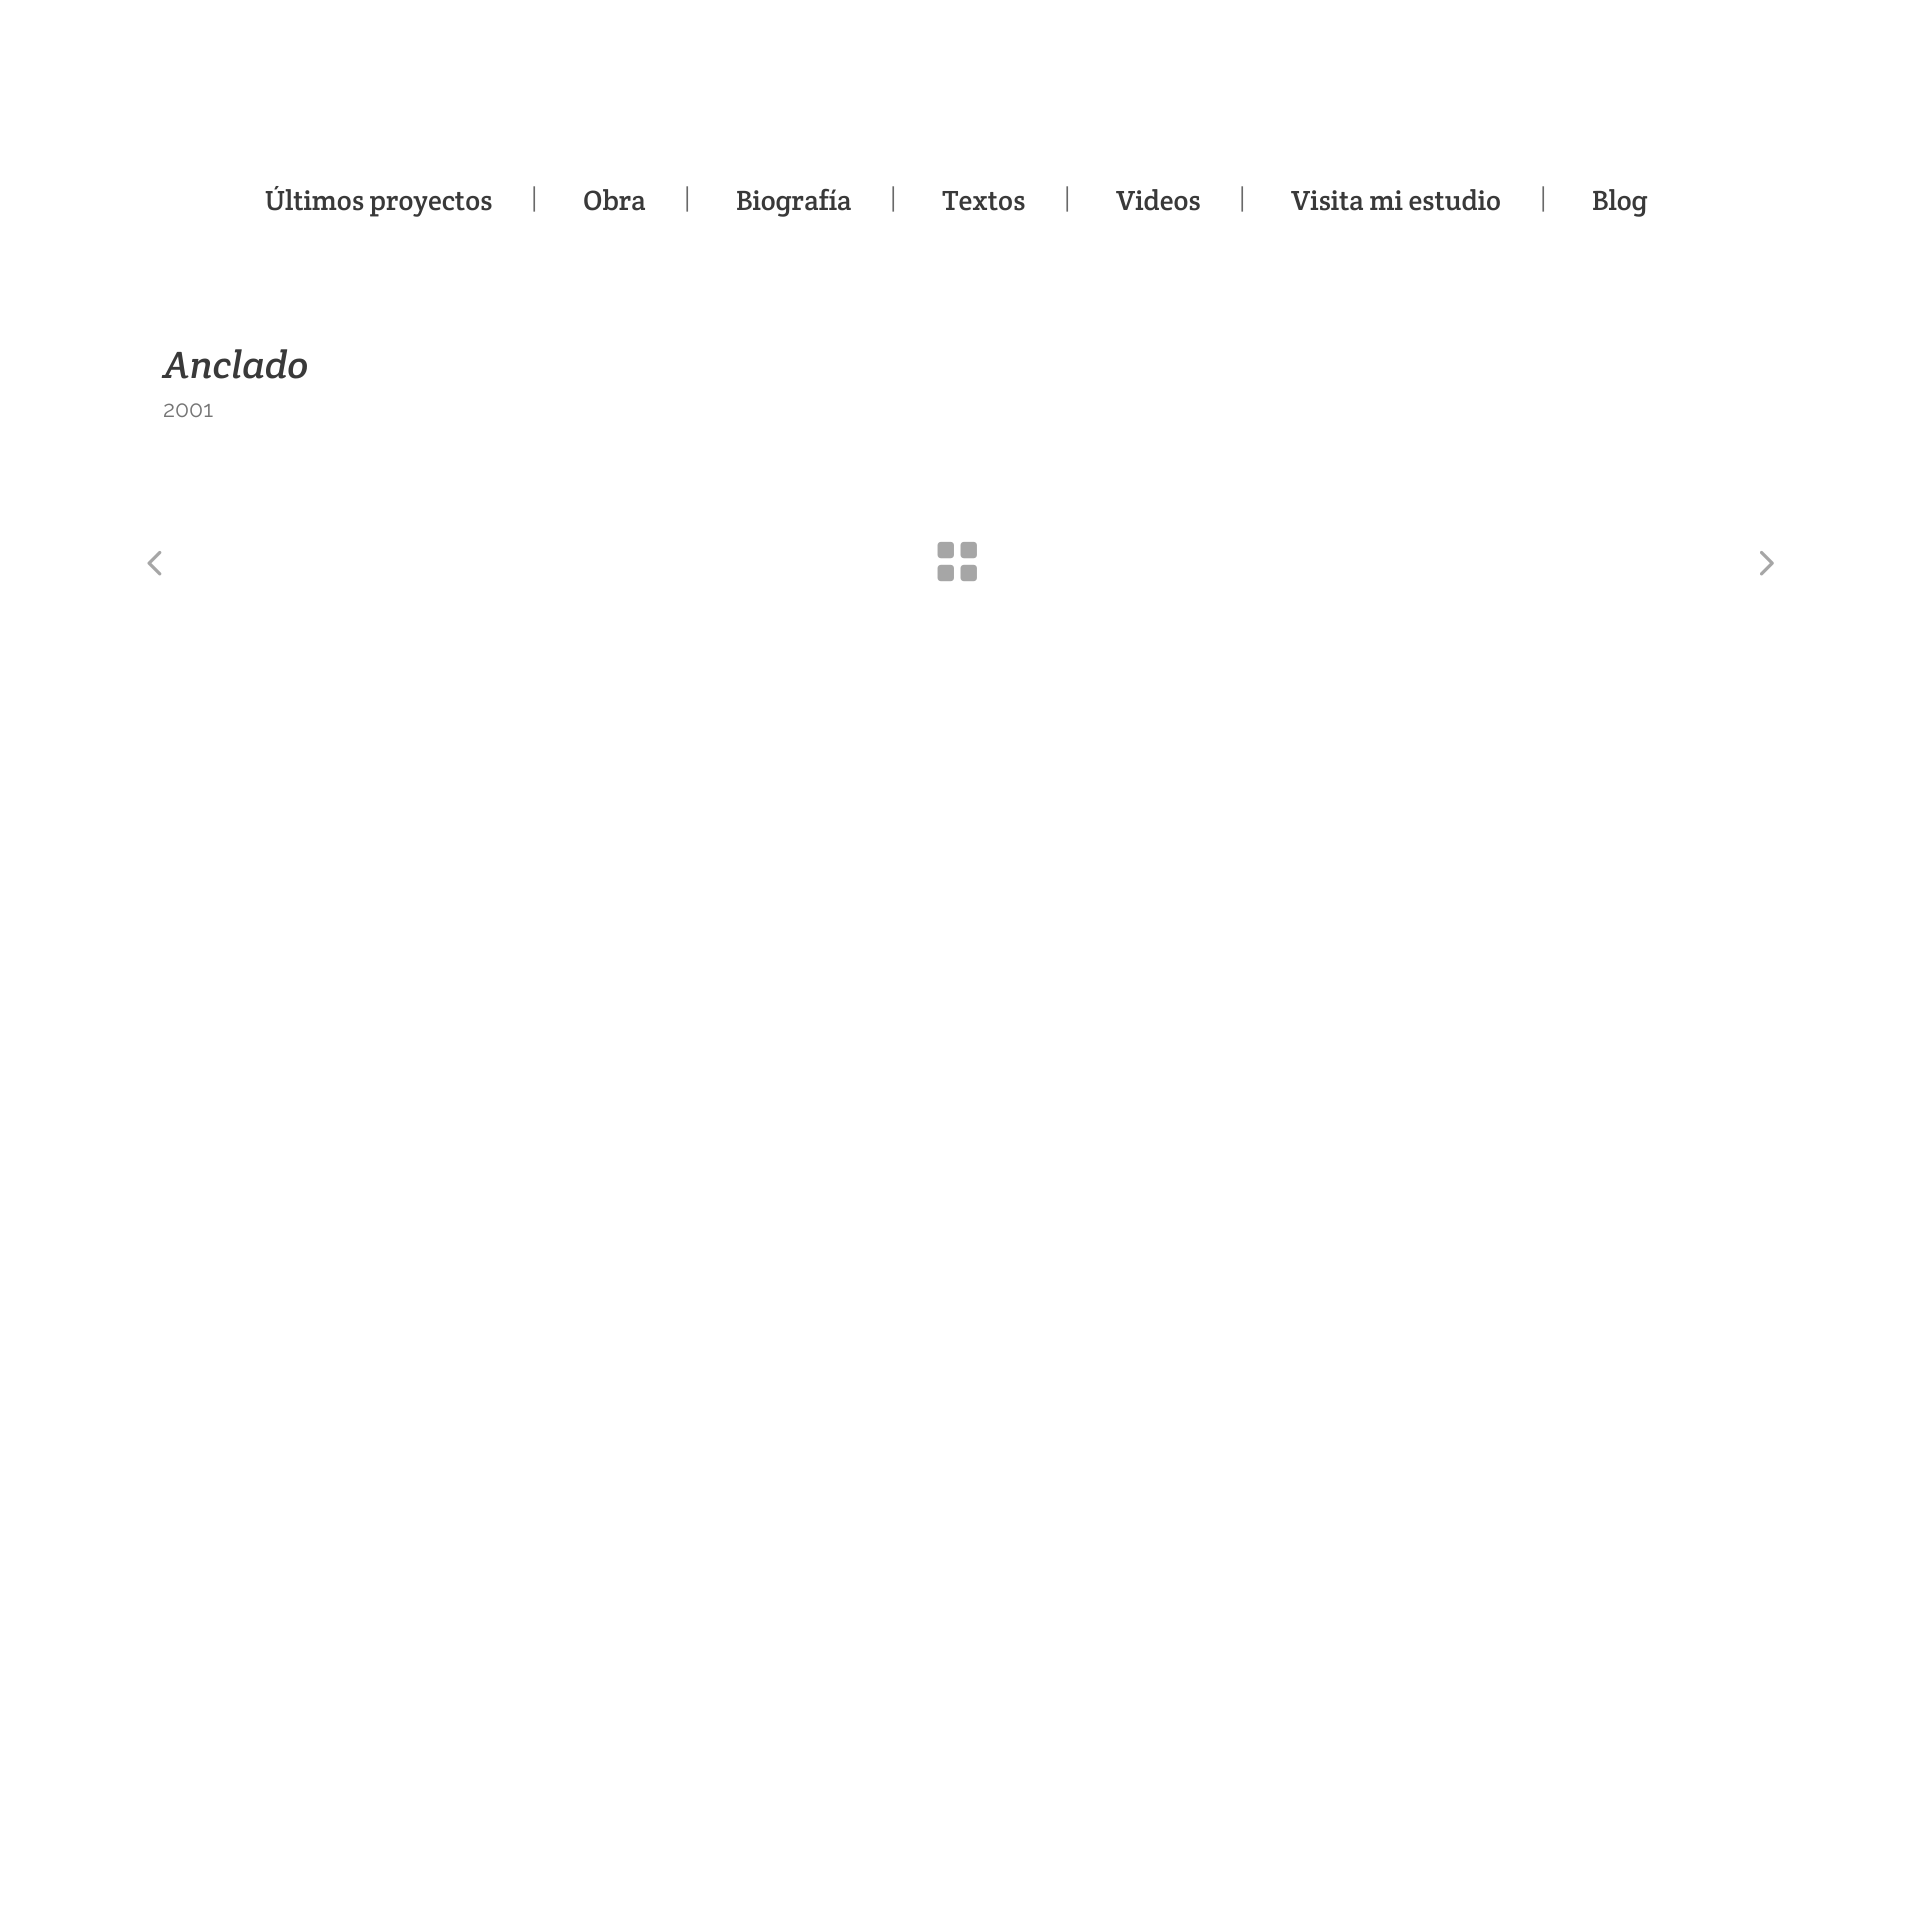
#include <cairo.h>
#include <math.h>
#include <stddef.h>


static void set_color(cairo_t *cr, unsigned color) {
    cairo_set_source_rgb(cr, (color >> 16) / 255.0, (color >> 8 & 255) / 255.0, (color & 255) / 255.0);
}

static void draw_text(cairo_t *cr, double x, double y, const char *s, const char *family, double size, int italic, int bold, unsigned color) {
    cairo_select_font_face(cr, family, italic ? CAIRO_FONT_SLANT_ITALIC : CAIRO_FONT_SLANT_NORMAL,
        bold ? CAIRO_FONT_WEIGHT_BOLD : CAIRO_FONT_WEIGHT_NORMAL);
    cairo_set_font_size(cr, size);
    set_color(cr, color);
    cairo_move_to(cr, x, y);
    cairo_show_text(cr, s);
}

static void draw_image(cairo_t *cr, const char *path, double x, double y, double w, double h) {
    cairo_surface_t *image = cairo_image_surface_create_from_png(path);
    cairo_save(cr);
    cairo_set_source_surface(cr, image, x, y);
    cairo_rectangle(cr, x, y, w, h);
    cairo_fill(cr);
    cairo_restore(cr);
    cairo_surface_destroy(image);
}

int main(void) {
    cairo_surface_t *surface = cairo_image_surface_create(CAIRO_FORMAT_RGB24, 1918, 1928);
    cairo_t *cr = cairo_create(surface);
    cairo_font_options_t *options = cairo_font_options_create();
    cairo_font_options_set_hint_metrics(options, CAIRO_HINT_METRICS_OFF);
    cairo_font_options_set_hint_style(options, CAIRO_HINT_STYLE_NONE);
    cairo_set_font_options(cr, options);
    cairo_set_miter_limit(cr, 4);
    set_color(cr, 0xFFFFFF);
    cairo_paint(cr);
    draw_text(cr, 265, 210, "Últimos proyectos", "Crete Round", 28, 0, 0, 0x393939);
    draw_text(cr, 531, 208, "|", "Raleway", 28, 0, 0, 0x696969);
    draw_text(cr, 583, 210, "Obra", "Crete Round", 28, 0, 0, 0x393939);
    draw_text(cr, 684, 208, "|", "Raleway", 28, 0, 0, 0x696969);
    draw_text(cr, 736, 210, "Biografía", "Crete Round", 28, 0, 0, 0x393939);
    draw_text(cr, 890, 208, "|", "Raleway", 28, 0, 0, 0x696969);
    draw_text(cr, 942, 210, "Textos", "Crete Round", 28, 0, 0, 0x393939);
    draw_text(cr, 1064, 208, "|", "Raleway", 28, 0, 0, 0x696969);
    draw_text(cr, 1116, 210, "Videos", "Crete Round", 28, 0, 0, 0x393939);
    draw_text(cr, 1239, 208, "|", "Raleway", 28, 0, 0, 0x696969);
    draw_text(cr, 1291, 210, "Visita mi estudio", "Crete Round", 28, 0, 0, 0x393939);
    draw_text(cr, 1540, 208, "|", "Raleway", 28, 0, 0, 0x696969);
    draw_text(cr, 1592, 210, "Blog", "Crete Round", 28, 0, 0, 0x393939);
    draw_text(cr, 163, 378, "Anclado", "Crete Round", 38.5, 1, 0, 0x393939);
    draw_text(cr, 163, 417, "2001", "Raleway", 23, 0, 0, 0x757575);
    draw_image(cr, "assets/img1.png", 147, 550, 15, 26);
    draw_image(cr, "assets/img2.png", 937, 541, 40, 41);
    draw_image(cr, "assets/img3.png", 1760, 550, 14, 26);
    cairo_surface_write_to_png(surface, "output.png");
    cairo_font_options_destroy(options);
    cairo_destroy(cr);
    cairo_surface_destroy(surface);
    return 0;
}
